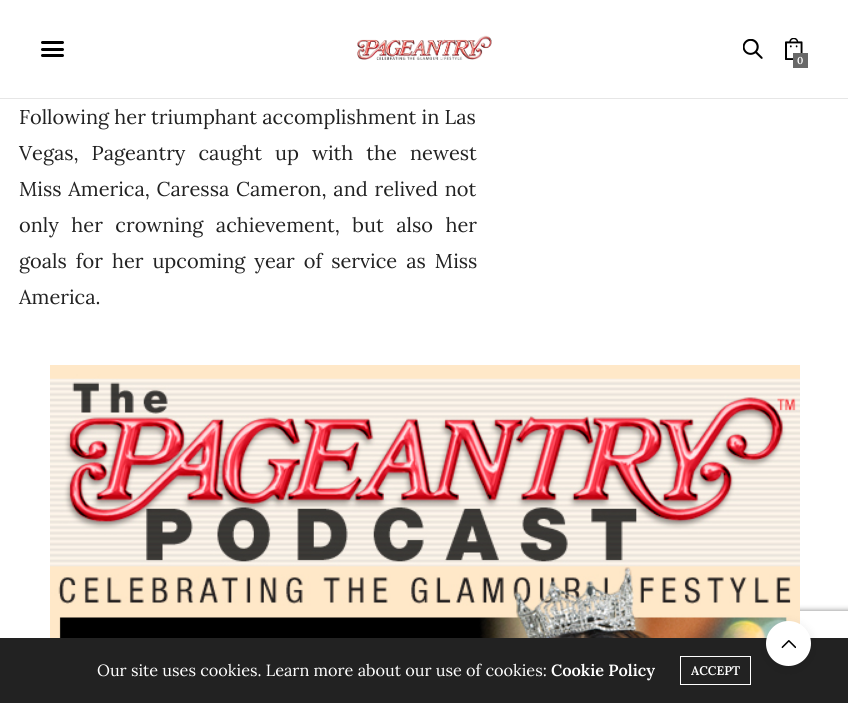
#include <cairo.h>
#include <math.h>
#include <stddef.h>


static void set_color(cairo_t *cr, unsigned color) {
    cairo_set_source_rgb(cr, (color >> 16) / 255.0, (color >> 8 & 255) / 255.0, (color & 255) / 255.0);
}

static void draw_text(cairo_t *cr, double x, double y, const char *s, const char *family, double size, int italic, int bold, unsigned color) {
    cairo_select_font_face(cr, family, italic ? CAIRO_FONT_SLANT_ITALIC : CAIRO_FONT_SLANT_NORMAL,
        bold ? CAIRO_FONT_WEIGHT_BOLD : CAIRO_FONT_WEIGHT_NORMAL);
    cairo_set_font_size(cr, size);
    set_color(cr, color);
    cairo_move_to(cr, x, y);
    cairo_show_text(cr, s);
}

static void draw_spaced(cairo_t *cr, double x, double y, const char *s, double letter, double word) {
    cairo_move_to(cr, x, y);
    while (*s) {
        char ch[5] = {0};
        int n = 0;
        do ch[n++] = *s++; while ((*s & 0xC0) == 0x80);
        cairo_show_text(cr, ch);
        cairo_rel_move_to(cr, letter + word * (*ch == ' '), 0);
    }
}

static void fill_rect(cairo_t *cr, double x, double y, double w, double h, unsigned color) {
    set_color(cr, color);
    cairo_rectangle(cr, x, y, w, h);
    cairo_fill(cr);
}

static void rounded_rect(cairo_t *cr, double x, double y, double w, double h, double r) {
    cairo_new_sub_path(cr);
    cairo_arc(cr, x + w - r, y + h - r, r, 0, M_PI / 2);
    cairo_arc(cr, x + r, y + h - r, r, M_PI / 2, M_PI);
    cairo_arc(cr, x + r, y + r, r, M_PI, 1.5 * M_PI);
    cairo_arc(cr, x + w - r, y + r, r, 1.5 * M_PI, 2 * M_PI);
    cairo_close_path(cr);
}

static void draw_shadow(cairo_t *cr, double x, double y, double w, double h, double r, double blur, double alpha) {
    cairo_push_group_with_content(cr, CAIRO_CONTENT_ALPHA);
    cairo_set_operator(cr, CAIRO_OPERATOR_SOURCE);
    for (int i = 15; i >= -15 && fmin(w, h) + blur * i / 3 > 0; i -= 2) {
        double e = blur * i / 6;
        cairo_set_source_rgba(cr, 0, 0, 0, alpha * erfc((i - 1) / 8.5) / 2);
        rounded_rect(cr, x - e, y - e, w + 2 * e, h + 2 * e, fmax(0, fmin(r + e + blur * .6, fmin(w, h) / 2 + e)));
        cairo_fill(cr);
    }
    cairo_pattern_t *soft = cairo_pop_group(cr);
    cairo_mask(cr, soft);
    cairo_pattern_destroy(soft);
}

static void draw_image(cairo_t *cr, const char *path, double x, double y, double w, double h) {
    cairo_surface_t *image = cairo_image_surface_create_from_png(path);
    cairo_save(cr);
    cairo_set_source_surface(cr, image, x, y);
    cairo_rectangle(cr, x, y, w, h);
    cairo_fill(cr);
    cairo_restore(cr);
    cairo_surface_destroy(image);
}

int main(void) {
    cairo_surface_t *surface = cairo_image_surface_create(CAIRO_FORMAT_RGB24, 848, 703);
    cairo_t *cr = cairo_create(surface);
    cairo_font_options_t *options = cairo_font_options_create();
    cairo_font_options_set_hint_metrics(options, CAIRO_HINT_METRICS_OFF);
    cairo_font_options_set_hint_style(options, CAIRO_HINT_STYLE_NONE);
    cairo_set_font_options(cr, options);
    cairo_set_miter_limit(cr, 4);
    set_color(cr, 0xFFFFFF);
    cairo_paint(cr);
    fill_rect(cr, 0, 98, 848, 1, 0xE6E6E6);
    set_color(cr, 0x000000);
    rounded_rect(cr, 41, 41, 23, 3, 1.5);
    cairo_fill(cr);
    rounded_rect(cr, 41, 48, 23, 3, 1.5);
    cairo_fill(cr);
    rounded_rect(cr, 41, 54, 23, 3, 1.5);
    cairo_fill(cr);
    draw_image(cr, "assets/img1.png", 357, 35, 135, 25);
    draw_image(cr, "assets/img2.png", 743, 39, 20, 20);
    draw_image(cr, "assets/img3.png", 785, 38, 18, 22);
    fill_rect(cr, 793, 53, 15, 15, 0x686868);
    draw_text(cr, 797, 64, "0", "Lora SemiBold", 10, 0, 0, 0xFFFFFF);
    draw_text(cr, 19, 124, "Following her triumphant accomplishment in Las", "Lora", 20, 0, 0, 0x222222);
    draw_spaced(cr, 19, 160, "Vegas, Pageantry caught up with the newest", 0, 7.75);
    draw_spaced(cr, 19, 196, "Miss America, Caressa Cameron, and relived not", 0, 1.5);
    draw_spaced(cr, 19, 232, "only her crowning achievement, but also her", 0, 7.25);
    draw_spaced(cr, 19, 268, "goals for her upcoming year of service as Miss", 0, 3.75);
    draw_text(cr, 19, 304, "America.", "Lora", 20, 0, 0, 0x222222);
    cairo_save(cr);
    cairo_set_fill_rule(cr, CAIRO_FILL_RULE_EVEN_ODD);
    cairo_new_path(cr);
    cairo_move_to(cr, 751, 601);
    cairo_line_to(cr, 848, 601);
    cairo_line_to(cr, 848, 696);
    cairo_line_to(cr, 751, 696);
    cairo_close_path(cr);
    cairo_move_to(cr, 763.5, 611);
    cairo_line_to(cr, 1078.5, 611);
    cairo_curve_to(cr, 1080, 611, 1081, 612, 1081, 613.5);
    cairo_line_to(cr, 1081, 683.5);
    cairo_curve_to(cr, 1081, 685, 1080, 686, 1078.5, 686);
    cairo_line_to(cr, 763.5, 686);
    cairo_curve_to(cr, 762, 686, 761, 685, 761, 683.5);
    cairo_line_to(cr, 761, 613.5);
    cairo_curve_to(cr, 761, 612, 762, 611, 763.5, 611);
    cairo_close_path(cr);
    cairo_clip(cr);
    set_color(cr, 0x808080);
    draw_shadow(cr, 761, 611, 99, 75, 2.5, 3, 1);
    cairo_restore(cr);
    draw_image(cr, "assets/img4.png", 50, 365, 750, 273);
    fill_rect(cr, 0, 638, 848, 65, 0x222222);
    draw_text(cr, 97, 676, "Our site uses cookies. Learn more about our use of cookies:", "Lora", 16.25, 0, 0, 0xFFFFFF);
    draw_text(cr, 551, 676, "Cookie Policy", "Lora SemiBold", 16.25, 0, 0, 0xFFFFFF);
    cairo_rectangle(cr, 680.5, 656.5, 70, 28);
    cairo_set_line_width(cr, 1);
    cairo_stroke(cr);
    draw_text(cr, 691, 675, "ACCEPT", "Lora SemiBold", 12.5, 0, 0, 0xFFFFFF);
    set_color(cr, 0x000000);
    draw_shadow(cr, 766, 624, 45, 45, 22.5, 5, 0.1);
    set_color(cr, 0xFFFFFF);
    cairo_arc(cr, 788.5, 643.5, 22.5, 0, 2 * M_PI);
    cairo_fill(cr);
    draw_image(cr, "assets/img5.png", 781, 640, 15, 9);
    cairo_surface_write_to_png(surface, "output.png");
    cairo_font_options_destroy(options);
    cairo_destroy(cr);
    cairo_surface_destroy(surface);
    return 0;
}
